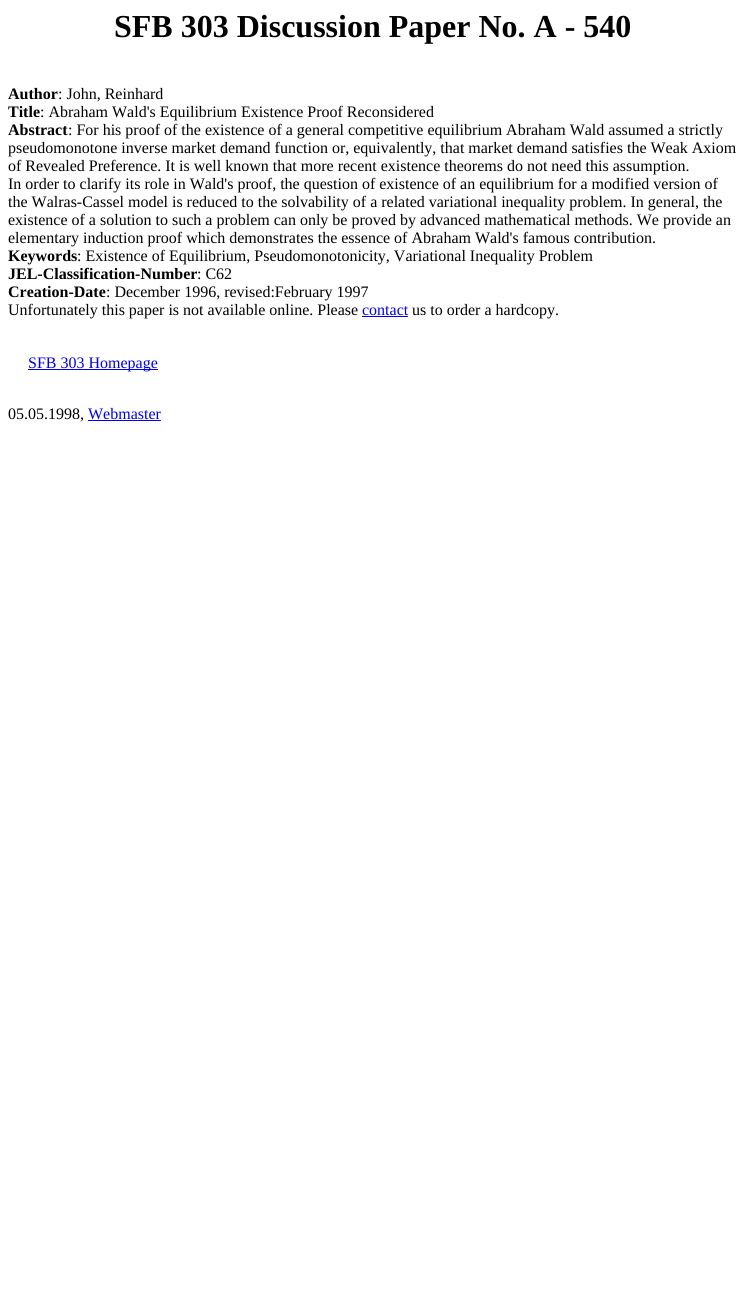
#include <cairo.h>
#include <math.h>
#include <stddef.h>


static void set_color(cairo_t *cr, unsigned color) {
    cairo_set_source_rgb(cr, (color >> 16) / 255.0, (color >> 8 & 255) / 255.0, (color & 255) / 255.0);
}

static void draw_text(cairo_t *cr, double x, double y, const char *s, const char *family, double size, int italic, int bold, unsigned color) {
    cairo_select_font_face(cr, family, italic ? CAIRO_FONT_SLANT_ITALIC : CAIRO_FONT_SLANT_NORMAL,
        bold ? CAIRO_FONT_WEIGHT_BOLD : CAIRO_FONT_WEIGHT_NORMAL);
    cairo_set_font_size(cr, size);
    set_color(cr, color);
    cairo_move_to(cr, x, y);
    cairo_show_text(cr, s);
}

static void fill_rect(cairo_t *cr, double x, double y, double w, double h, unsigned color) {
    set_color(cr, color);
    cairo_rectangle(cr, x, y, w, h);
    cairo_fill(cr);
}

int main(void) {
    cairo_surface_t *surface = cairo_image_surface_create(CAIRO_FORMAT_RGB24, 746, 1316);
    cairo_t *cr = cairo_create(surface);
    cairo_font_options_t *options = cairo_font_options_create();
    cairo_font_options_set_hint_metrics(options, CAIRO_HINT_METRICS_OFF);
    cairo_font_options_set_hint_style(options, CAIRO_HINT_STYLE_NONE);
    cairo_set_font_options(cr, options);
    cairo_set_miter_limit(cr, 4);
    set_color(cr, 0xFFFFFF);
    cairo_paint(cr);
    draw_text(cr, 114, 37, "SFB 303 Discussion Paper No. A - 540", "Liberation Serif", 32, 0, 1, 0x000000);
    draw_text(cr, 8, 99, "Author", "Liberation Serif", 16, 0, 1, 0x000000);
    draw_text(cr, 58, 99, ": John, Reinhard", "Liberation Serif", 16, 0, 0, 0x000000);
    draw_text(cr, 8, 117, "Title", "Liberation Serif", 16, 0, 1, 0x000000);
    draw_text(cr, 40, 117, ": Abraham Wald's Equilibrium Existence Proof Reconsidered", "Liberation Serif", 16, 0, 0, 0x000000);
    draw_text(cr, 8, 135, "Abstract", "Liberation Serif", 16, 0, 1, 0x000000);
    draw_text(cr, 68, 135, ": For his proof of the existence of a general competitive equilibrium Abraham Wald assumed a strictly", "Liberation Serif", 16, 0, 0, 0x000000);
    draw_text(cr, 8, 153, "pseudomonotone inverse market demand function or, equivalently, that market demand satisfies the Weak Axiom", "Liberation Serif", 16, 0, 0, 0x000000);
    draw_text(cr, 8, 171, "of Revealed Preference. It is well known that more recent existence theorems do not need this assumption.", "Liberation Serif", 16, 0, 0, 0x000000);
    draw_text(cr, 8, 189, "In order to clarify its role in Wald's proof, the question of existence of an equilibrium for a modified version of", "Liberation Serif", 16, 0, 0, 0x000000);
    draw_text(cr, 8, 207, "the Walras-Cassel model is reduced to the solvability of a related variational inequality problem. In general, the", "Liberation Serif", 16, 0, 0, 0x000000);
    draw_text(cr, 8, 225, "existence of a solution to such a problem can only be proved by advanced mathematical methods. We provide an", "Liberation Serif", 16, 0, 0, 0x000000);
    draw_text(cr, 8, 243, "elementary induction proof which demonstrates the essence of Abraham Wald's famous contribution.", "Liberation Serif", 16, 0, 0, 0x000000);
    draw_text(cr, 8, 261, "Keywords", "Liberation Serif", 16, 0, 1, 0x000000);
    draw_text(cr, 77, 261, ": Existence of Equilibrium, Pseudomonotonicity, Variational Inequality Problem", "Liberation Serif", 16, 0, 0, 0x000000);
    draw_text(cr, 8, 279, "JEL-Classification-Number", "Liberation Serif", 16, 0, 1, 0x000000);
    draw_text(cr, 197, 279, ": C62", "Liberation Serif", 16, 0, 0, 0x000000);
    draw_text(cr, 8, 297, "Creation-Date", "Liberation Serif", 16, 0, 1, 0x000000);
    draw_text(cr, 106, 297, ": December 1996, revised:February 1997", "Liberation Serif", 16, 0, 0, 0x000000);
    draw_text(cr, 8, 315, "Unfortunately this paper is not available online. Please", "Liberation Serif", 16, 0, 0, 0x000000);
    draw_text(cr, 362, 315, "contact", "Liberation Serif", 16, 0, 0, 0x0000EE);
    fill_rect(cr, 362, 316, 46, 1, 0x0000EE);
    draw_text(cr, 412, 315, "us to order a hardcopy.", "Liberation Serif", 16, 0, 0, 0x000000);
    fill_rect(cr, 28, 369, 130, 1, 0x0000EE);
    draw_text(cr, 28, 368, "SFB 303 Homepage", "Liberation Serif", 16, 0, 0, 0x0000EE);
    draw_text(cr, 8, 419, "05.05.1998,", "Liberation Serif", 16, 0, 0, 0x000000);
    draw_text(cr, 88, 419, "Webmaster", "Liberation Serif", 16, 0, 0, 0x0000EE);
    fill_rect(cr, 88, 420, 73, 1, 0x0000EE);
    cairo_surface_write_to_png(surface, "output.png");
    cairo_font_options_destroy(options);
    cairo_destroy(cr);
    cairo_surface_destroy(surface);
    return 0;
}
